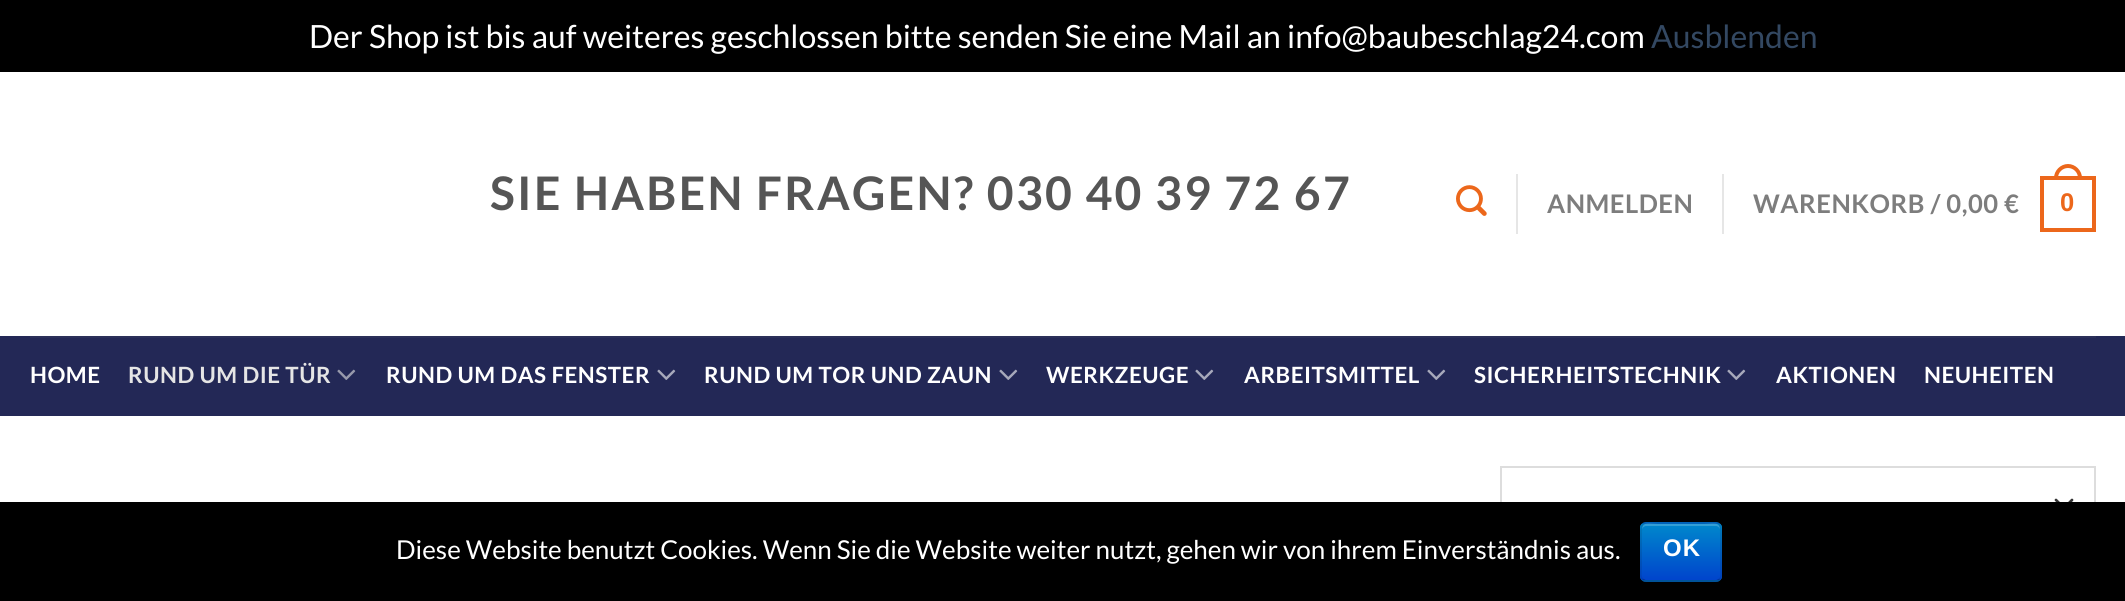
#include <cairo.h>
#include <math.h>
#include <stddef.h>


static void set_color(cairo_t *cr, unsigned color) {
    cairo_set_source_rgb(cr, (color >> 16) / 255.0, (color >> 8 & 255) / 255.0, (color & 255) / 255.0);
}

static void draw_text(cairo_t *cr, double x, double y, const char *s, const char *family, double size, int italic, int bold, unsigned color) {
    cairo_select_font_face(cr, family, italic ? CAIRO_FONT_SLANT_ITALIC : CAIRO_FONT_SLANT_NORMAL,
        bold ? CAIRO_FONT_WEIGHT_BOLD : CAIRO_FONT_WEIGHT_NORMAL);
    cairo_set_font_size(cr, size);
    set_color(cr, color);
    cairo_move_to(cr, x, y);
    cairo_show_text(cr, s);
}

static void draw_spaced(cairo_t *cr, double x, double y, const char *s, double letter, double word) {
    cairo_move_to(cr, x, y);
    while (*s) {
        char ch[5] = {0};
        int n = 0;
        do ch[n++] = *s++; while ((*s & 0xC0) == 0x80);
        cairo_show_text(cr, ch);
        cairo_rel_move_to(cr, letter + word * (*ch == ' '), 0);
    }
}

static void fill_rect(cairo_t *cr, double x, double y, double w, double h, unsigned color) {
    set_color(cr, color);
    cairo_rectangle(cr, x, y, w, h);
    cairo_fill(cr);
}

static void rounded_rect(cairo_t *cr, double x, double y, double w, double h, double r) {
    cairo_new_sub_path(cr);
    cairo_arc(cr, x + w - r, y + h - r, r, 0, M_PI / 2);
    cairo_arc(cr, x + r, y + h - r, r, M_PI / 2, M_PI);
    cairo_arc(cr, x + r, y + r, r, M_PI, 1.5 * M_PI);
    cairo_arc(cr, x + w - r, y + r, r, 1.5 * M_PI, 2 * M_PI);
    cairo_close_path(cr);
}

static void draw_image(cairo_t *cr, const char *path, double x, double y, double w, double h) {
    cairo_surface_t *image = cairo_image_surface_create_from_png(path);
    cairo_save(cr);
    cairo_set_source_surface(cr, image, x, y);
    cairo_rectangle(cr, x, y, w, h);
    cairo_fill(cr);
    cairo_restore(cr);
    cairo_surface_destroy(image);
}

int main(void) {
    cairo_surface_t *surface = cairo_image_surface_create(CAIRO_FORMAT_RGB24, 2125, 601);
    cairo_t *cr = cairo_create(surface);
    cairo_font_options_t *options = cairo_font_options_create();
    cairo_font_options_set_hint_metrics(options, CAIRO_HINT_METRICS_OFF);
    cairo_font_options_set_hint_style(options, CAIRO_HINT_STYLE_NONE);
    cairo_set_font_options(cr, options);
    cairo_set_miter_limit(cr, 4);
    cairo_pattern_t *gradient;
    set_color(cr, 0xFFFFFF);
    cairo_paint(cr);
    fill_rect(cr, 0, 0, 2125, 72, 0x000000);
    draw_text(cr, 309, 48, "Der Shop ist bis auf weiteres geschlossen bitte senden Sie eine Mail an info@baubeschlag24.com", "Lato", 32, 0, 0, 0xFFFFFF);
    draw_text(cr, 1651, 48, "Ausblenden", "Lato", 32, 0, 0, 0x334862);
    cairo_select_font_face(cr, "Lato", CAIRO_FONT_SLANT_NORMAL, CAIRO_FONT_WEIGHT_BOLD);
    cairo_set_font_size(cr, 46.25);
    set_color(cr, 0x555555);
    draw_spaced(cr, 490, 210, "SIE HABEN FRAGEN? 030 40 39 72 67", 2.3, 0);
    draw_image(cr, "assets/img1.png", 1456, 185, 31, 31);
    fill_rect(cr, 1516, 174, 2, 60, 0xE6E6E6);
    cairo_set_font_size(cr, 25.6);
    set_color(cr, 0x7D7D7D);
    draw_spaced(cr, 1547, 213, "ANMELDEN", 0.5, 0);
    fill_rect(cr, 1722, 174, 2, 60, 0xE6E6E6);
    set_color(cr, 0x7D7D7D);
    draw_spaced(cr, 1753, 213, "WARENKORB / 0,00 €", 0.5, 0);
    cairo_rectangle(cr, 2042, 178, 52, 52);
    set_color(cr, 0xEC671B);
    cairo_set_line_width(cr, 4);
    cairo_stroke(cr);
    cairo_set_fill_rule(cr, CAIRO_FILL_RULE_EVEN_ODD);
    cairo_new_path(cr);
    cairo_move_to(cr, 2068, 164);
    cairo_curve_to(cr, 2075.5, 164, 2082, 170.5, 2082, 178);
    cairo_line_to(cr, 2082, 180);
    cairo_line_to(cr, 2054, 180);
    cairo_line_to(cr, 2054, 178);
    cairo_curve_to(cr, 2054, 170.5, 2060.5, 164, 2068, 164);
    cairo_close_path(cr);
    cairo_move_to(cr, 2068, 168);
    cairo_curve_to(cr, 2073.5, 168, 2078, 172.5, 2078, 178);
    cairo_line_to(cr, 2078, 180);
    cairo_line_to(cr, 2058, 180);
    cairo_line_to(cr, 2058, 178);
    cairo_curve_to(cr, 2058, 172.5, 2062.5, 168, 2068, 168);
    cairo_close_path(cr);
    cairo_fill(cr);
    cairo_select_font_face(cr, "Liberation Sans", CAIRO_FONT_SLANT_NORMAL, CAIRO_FONT_WEIGHT_BOLD);
    draw_spaced(cr, 2060, 211, "0", 0.5, 0);
    fill_rect(cr, 0, 336, 2125, 80, 0x232856);
    fill_rect(cr, 30, 336, 2066, 2, 0x2B3059);
    cairo_select_font_face(cr, "Lato", CAIRO_FONT_SLANT_NORMAL, CAIRO_FONT_WEIGHT_BOLD);
    cairo_set_font_size(cr, 22.4);
    set_color(cr, 0xFFFFFF);
    draw_spaced(cr, 30, 383, "HOME", 0.5, 0);
    set_color(cr, 0xE5E5E5);
    draw_spaced(cr, 128, 383, "RUND UM DIE TÜR", 0.5, 0);
    draw_image(cr, "assets/img2.png", 337, 369, 19, 11);
    set_color(cr, 0xFFFFFF);
    draw_spaced(cr, 386, 383, "RUND UM DAS FENSTER", 0.5, 0);
    draw_image(cr, "assets/img3.png", 657, 369, 19, 11);
    draw_spaced(cr, 704, 383, "RUND UM TOR UND ZAUN", 0.5, 0);
    draw_image(cr, "assets/img3.png", 999, 369, 19, 11);
    draw_spaced(cr, 1046, 383, "WERKZEUGE", 0.5, 0);
    draw_image(cr, "assets/img3.png", 1195, 369, 19, 11);
    draw_spaced(cr, 1244, 383, "ARBEITSMITTEL", 0.5, 0);
    draw_image(cr, "assets/img3.png", 1427, 369, 19, 11);
    draw_spaced(cr, 1474, 383, "SICHERHEITSTECHNIK", 0.5, 0);
    draw_image(cr, "assets/img3.png", 1727, 369, 19, 11);
    draw_spaced(cr, 1776, 383, "AKTIONEN", 0.5, 0);
    draw_spaced(cr, 1924, 383, "NEUHEITEN", 0.5, 0);
    cairo_new_path(cr);
    cairo_move_to(cr, 2056, 500);
    cairo_line_to(cr, 2064, 508);
    cairo_line_to(cr, 2072, 500);
    set_color(cr, 0x333333);
    cairo_set_line_width(cr, 2.7);
    cairo_set_line_cap(cr, CAIRO_LINE_CAP_ROUND);
    cairo_set_line_join(cr, CAIRO_LINE_JOIN_ROUND);
    cairo_stroke(cr);
    cairo_rectangle(cr, 1501, 467, 594, 76);
    set_color(cr, 0xDDDDDD);
    cairo_set_line_width(cr, 2);
    cairo_set_line_cap(cr, CAIRO_LINE_CAP_BUTT);
    cairo_set_line_join(cr, CAIRO_LINE_JOIN_MITER);
    cairo_stroke(cr);
    fill_rect(cr, 0, 502, 2125, 99, 0x000000);
    draw_text(cr, 396, 559, "Diese Website benutzt Cookies. Wenn Sie die Website weiter nutzt, gehen wir von ihrem Einverständnis aus.", "Lato", 26, 0, 0, 0xFFFFFF);
    set_color(cr, 0x006DCC);
    rounded_rect(cr, 1640, 522, 82, 60, 6);
    cairo_fill(cr);
    cairo_save(cr);
    cairo_set_fill_rule(cr, CAIRO_FILL_RULE_WINDING);
    rounded_rect(cr, 1640, 522, 82, 60, 6);
    cairo_clip(cr);
    gradient = cairo_pattern_create_linear(1681, 524, 1681, 580);
    cairo_pattern_add_color_stop_rgba(gradient, 0, 0, 0.533, 0.8, 1);
    cairo_pattern_add_color_stop_rgba(gradient, 1, 0, 0.267, 0.8, 1);
    cairo_set_source(cr, gradient);
    cairo_pattern_destroy(gradient);
    cairo_rectangle(cr, 1640, 524, 82, 56);
    cairo_fill(cr);
    cairo_restore(cr);
    cairo_set_source_rgba(cr, 1, 1, 1, 0.2);
    cairo_set_fill_rule(cr, CAIRO_FILL_RULE_WINDING);
    cairo_new_path(cr);
    cairo_move_to(cr, 1646, 526);
    cairo_line_to(cr, 1716, 526);
    cairo_curve_to(cr, 1718, 526, 1720, 528, 1720, 530);
    cairo_curve_to(cr, 1720, 521, 1712, 524, 1704, 524);
    cairo_line_to(cr, 1658, 524);
    cairo_curve_to(cr, 1650, 524, 1642, 521, 1642, 530);
    cairo_curve_to(cr, 1642, 528, 1644, 526, 1646, 526);
    cairo_close_path(cr);
    cairo_fill(cr);
    cairo_new_path(cr);
    cairo_move_to(cr, 1719.5, 579.5);
    cairo_line_to(cr, 1716.5, 581);
    cairo_line_to(cr, 1645.5, 581);
    cairo_line_to(cr, 1642.5, 579.5);
    cairo_set_source_rgba(cr, 0, 0, 0, 0.25);
    cairo_stroke(cr);
    cairo_new_path(cr);
    cairo_move_to(cr, 1642.5, 579.5);
    cairo_curve_to(cr, 1639.5, 577, 1641, 570.5, 1641, 568);
    cairo_line_to(cr, 1641, 536);
    cairo_curve_to(cr, 1641, 520.5, 1641.5, 523, 1657.5, 523);
    cairo_line_to(cr, 1704.5, 523);
    cairo_curve_to(cr, 1720.5, 523, 1721, 520.5, 1721, 536);
    cairo_line_to(cr, 1721, 568);
    cairo_curve_to(cr, 1721, 570.5, 1722.5, 577, 1719.5, 579.5);
    cairo_set_source_rgba(cr, 0, 0, 0, 0.1);
    cairo_stroke(cr);
    cairo_select_font_face(cr, "Liberation Sans", CAIRO_FONT_SLANT_NORMAL, CAIRO_FONT_WEIGHT_BOLD);
    cairo_set_font_size(cr, 24);
    set_color(cr, 0xFFFFFF);
    draw_spaced(cr, 1663, 556, "OK", 1, 0);
    cairo_surface_write_to_png(surface, "output.png");
    cairo_font_options_destroy(options);
    cairo_destroy(cr);
    cairo_surface_destroy(surface);
    return 0;
}
